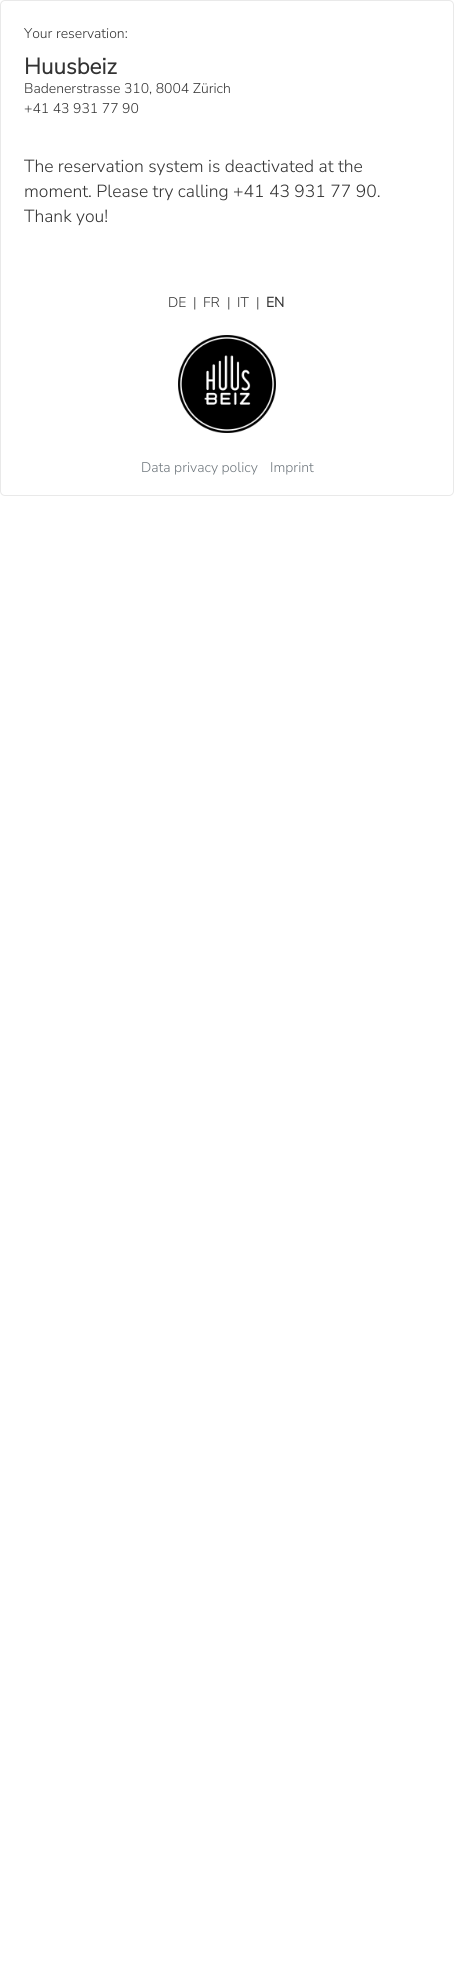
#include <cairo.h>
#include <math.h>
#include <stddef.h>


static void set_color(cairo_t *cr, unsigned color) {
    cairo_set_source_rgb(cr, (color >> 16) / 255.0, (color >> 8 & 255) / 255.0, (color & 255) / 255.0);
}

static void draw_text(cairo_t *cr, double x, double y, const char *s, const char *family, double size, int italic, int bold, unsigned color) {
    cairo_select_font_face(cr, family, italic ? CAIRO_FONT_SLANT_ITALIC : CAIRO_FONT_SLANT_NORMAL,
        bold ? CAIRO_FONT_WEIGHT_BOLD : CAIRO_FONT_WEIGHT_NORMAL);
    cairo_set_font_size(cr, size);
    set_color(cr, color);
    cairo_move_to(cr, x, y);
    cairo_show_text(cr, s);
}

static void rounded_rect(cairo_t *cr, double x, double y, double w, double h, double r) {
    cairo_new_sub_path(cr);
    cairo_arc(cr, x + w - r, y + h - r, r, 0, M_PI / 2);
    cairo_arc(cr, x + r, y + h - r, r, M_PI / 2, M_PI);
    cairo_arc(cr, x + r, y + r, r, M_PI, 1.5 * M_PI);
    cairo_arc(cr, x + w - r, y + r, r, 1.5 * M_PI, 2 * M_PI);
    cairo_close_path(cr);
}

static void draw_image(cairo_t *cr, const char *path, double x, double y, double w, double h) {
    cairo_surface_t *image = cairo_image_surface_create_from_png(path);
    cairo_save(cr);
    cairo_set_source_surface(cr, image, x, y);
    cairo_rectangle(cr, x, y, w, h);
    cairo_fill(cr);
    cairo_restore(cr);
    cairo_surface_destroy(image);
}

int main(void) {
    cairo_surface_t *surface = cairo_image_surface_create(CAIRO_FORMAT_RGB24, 454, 1983);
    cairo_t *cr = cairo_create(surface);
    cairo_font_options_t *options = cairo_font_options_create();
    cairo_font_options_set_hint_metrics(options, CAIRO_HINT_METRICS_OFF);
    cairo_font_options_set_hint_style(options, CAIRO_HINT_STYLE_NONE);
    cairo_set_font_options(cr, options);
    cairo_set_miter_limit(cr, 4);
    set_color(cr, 0xFFFFFF);
    cairo_paint(cr);
    rounded_rect(cr, 0.5, 0.5, 453, 495, 4.5);
    set_color(cr, 0xE9E9E9);
    cairo_set_line_width(cr, 1);
    cairo_stroke(cr);
    draw_text(cr, 24, 38, "Your reservation:", "Nunito Sans ExtraLight", 14, 0, 0, 0x333333);
    draw_text(cr, 24, 74, "Huusbeiz", "Nunito Sans", 22.5, 0, 1, 0x333333);
    draw_text(cr, 24, 93, "Badenerstrasse 310, 8004 Zürich", "Nunito Sans ExtraLight", 14, 0, 0, 0x333333);
    draw_text(cr, 24, 113, "+41 43 931 77 90", "Nunito Sans ExtraLight", 14, 0, 0, 0x333333);
    draw_text(cr, 24, 172, "The reservation system is deactivated at the", "Nunito Sans ExtraLight", 17.5, 0, 0, 0x333333);
    draw_text(cr, 24, 197, "moment. Please try calling +41 43 931 77 90.", "Nunito Sans ExtraLight", 17.5, 0, 0, 0x333333);
    draw_text(cr, 24, 222, "Thank you!", "Nunito Sans ExtraLight", 17.5, 0, 0, 0x333333);
    draw_text(cr, 168, 307, "DE", "Nunito Sans ExtraLight", 14, 0, 0, 0x333333);
    draw_text(cr, 193, 307, "|", "Nunito Sans ExtraLight", 14, 0, 0, 0x333333);
    draw_text(cr, 203, 307, "FR", "Nunito Sans ExtraLight", 14, 0, 0, 0x333333);
    draw_text(cr, 227, 307, "|", "Nunito Sans ExtraLight", 14, 0, 0, 0x333333);
    draw_text(cr, 237, 307, "IT", "Nunito Sans ExtraLight", 14, 0, 0, 0x333333);
    draw_text(cr, 256, 307, "|", "Nunito Sans ExtraLight", 14, 0, 0, 0x333333);
    draw_text(cr, 266, 307, "EN", "Nunito Sans", 14, 0, 1, 0x333333);
    draw_image(cr, "assets/img1.png", 178, 335, 98, 98);
    draw_text(cr, 141, 472, "Data privacy policy", "Nunito Sans ExtraLight", 14, 0, 0, 0x70787E);
    draw_text(cr, 270, 472, "Imprint", "Nunito Sans ExtraLight", 14, 0, 0, 0x70787E);
    cairo_surface_write_to_png(surface, "output.png");
    cairo_font_options_destroy(options);
    cairo_destroy(cr);
    cairo_surface_destroy(surface);
    return 0;
}
